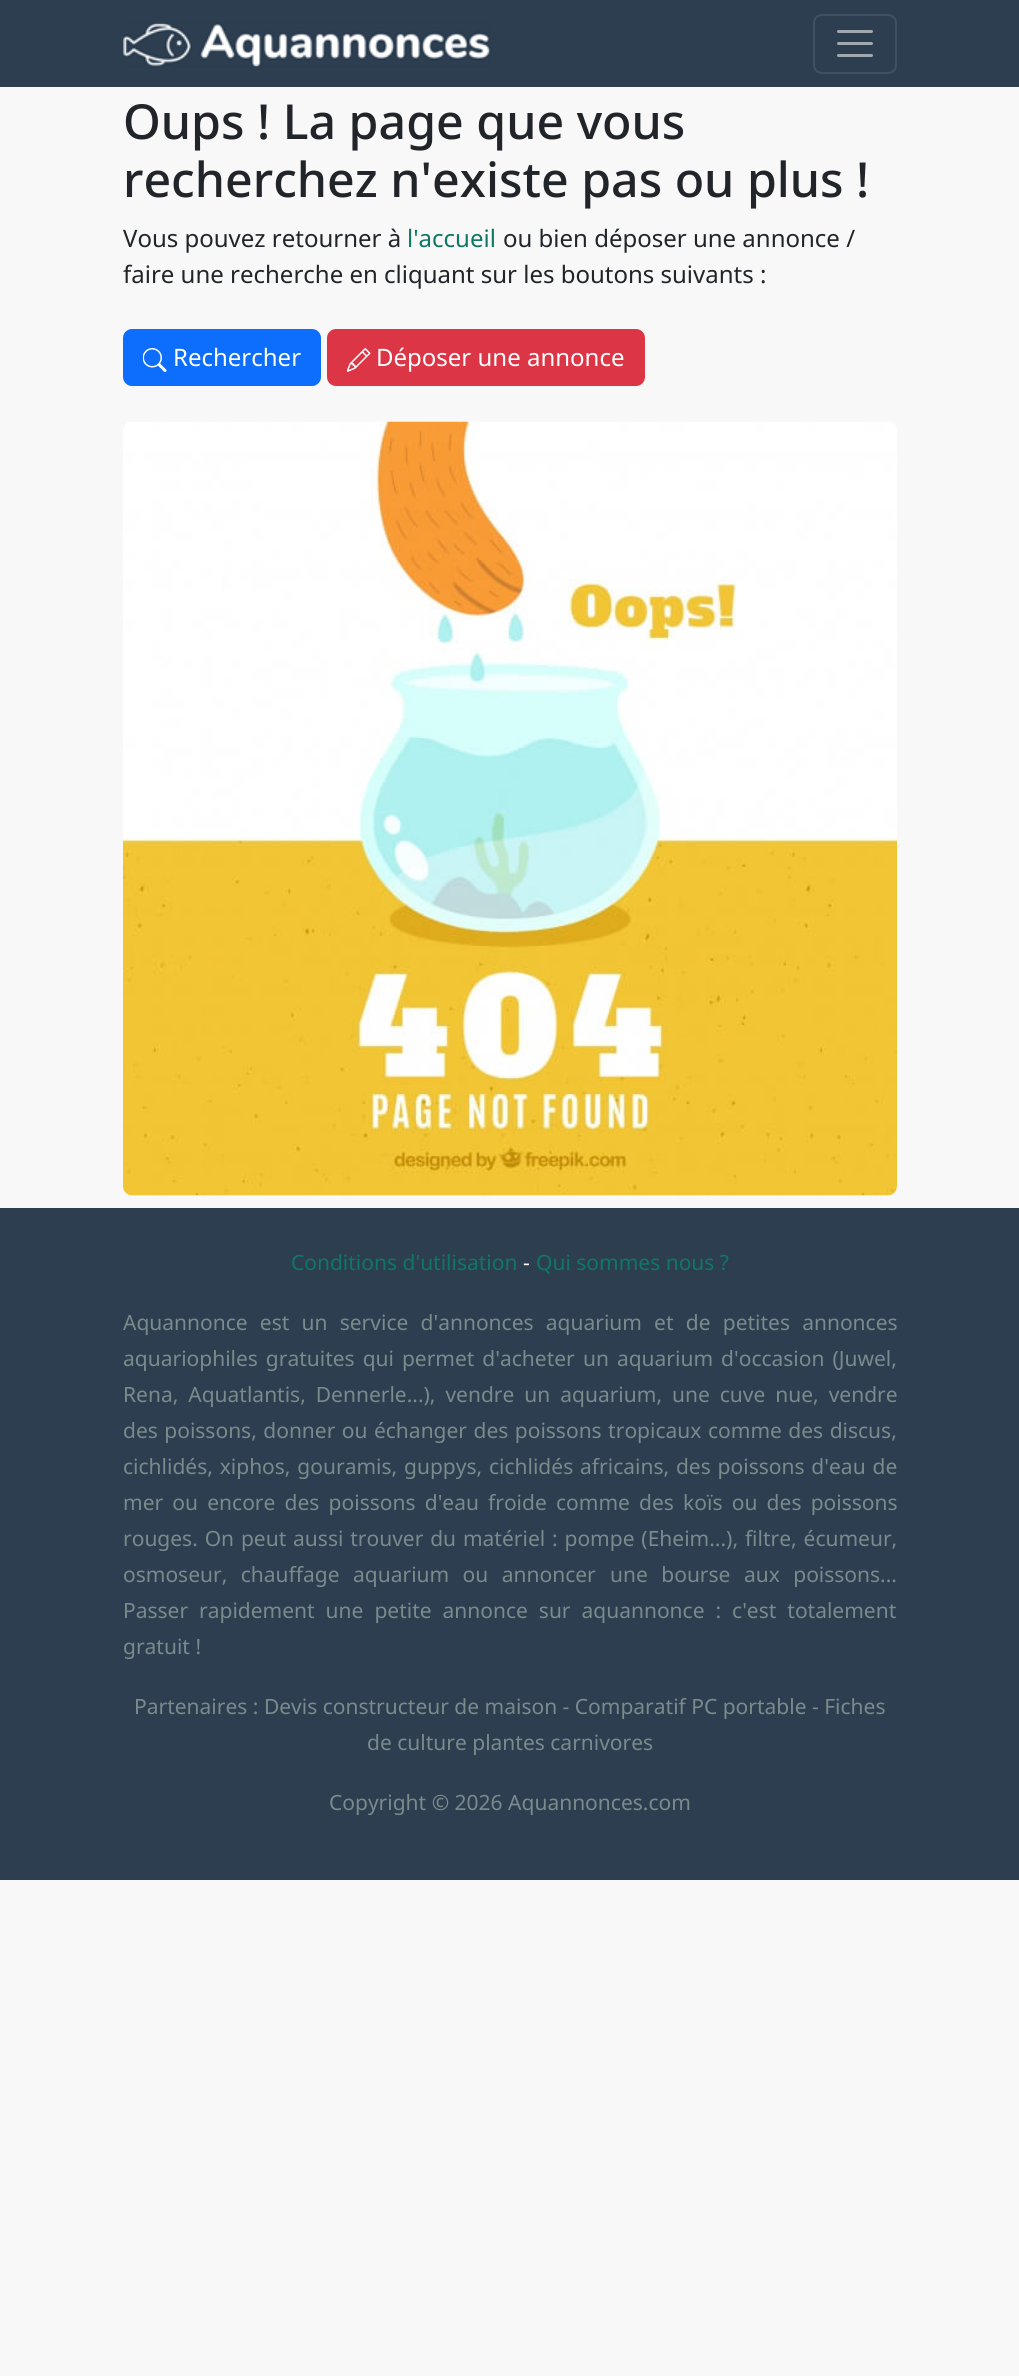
#include <cairo.h>
#include <math.h>
#include <stddef.h>


static void set_color(cairo_t *cr, unsigned color) {
    cairo_set_source_rgb(cr, (color >> 16) / 255.0, (color >> 8 & 255) / 255.0, (color & 255) / 255.0);
}

static void draw_text(cairo_t *cr, double x, double y, const char *s, const char *family, double size, int italic, int bold, unsigned color) {
    cairo_select_font_face(cr, family, italic ? CAIRO_FONT_SLANT_ITALIC : CAIRO_FONT_SLANT_NORMAL,
        bold ? CAIRO_FONT_WEIGHT_BOLD : CAIRO_FONT_WEIGHT_NORMAL);
    cairo_set_font_size(cr, size);
    set_color(cr, color);
    cairo_move_to(cr, x, y);
    cairo_show_text(cr, s);
}

static void draw_spaced(cairo_t *cr, double x, double y, const char *s, double letter, double word) {
    cairo_move_to(cr, x, y);
    while (*s) {
        char ch[5] = {0};
        int n = 0;
        do ch[n++] = *s++; while ((*s & 0xC0) == 0x80);
        cairo_show_text(cr, ch);
        cairo_rel_move_to(cr, letter + word * (*ch == ' '), 0);
    }
}

static void fill_rect(cairo_t *cr, double x, double y, double w, double h, unsigned color) {
    set_color(cr, color);
    cairo_rectangle(cr, x, y, w, h);
    cairo_fill(cr);
}

static void rounded_rect(cairo_t *cr, double x, double y, double w, double h, double r) {
    cairo_new_sub_path(cr);
    cairo_arc(cr, x + w - r, y + h - r, r, 0, M_PI / 2);
    cairo_arc(cr, x + r, y + h - r, r, M_PI / 2, M_PI);
    cairo_arc(cr, x + r, y + r, r, M_PI, 1.5 * M_PI);
    cairo_arc(cr, x + w - r, y + r, r, 1.5 * M_PI, 2 * M_PI);
    cairo_close_path(cr);
}

static void draw_image(cairo_t *cr, const char *path, double x, double y, double w, double h) {
    cairo_surface_t *image = cairo_image_surface_create_from_png(path);
    cairo_save(cr);
    cairo_set_source_surface(cr, image, x, y);
    cairo_rectangle(cr, x, y, w, h);
    cairo_fill(cr);
    cairo_restore(cr);
    cairo_surface_destroy(image);
}

int main(void) {
    cairo_surface_t *surface = cairo_image_surface_create(CAIRO_FORMAT_RGB24, 1019, 2376);
    cairo_t *cr = cairo_create(surface);
    cairo_font_options_t *options = cairo_font_options_create();
    cairo_font_options_set_hint_metrics(options, CAIRO_HINT_METRICS_OFF);
    cairo_font_options_set_hint_style(options, CAIRO_HINT_STYLE_NONE);
    cairo_set_font_options(cr, options);
    cairo_set_miter_limit(cr, 4);
    set_color(cr, 0xF8F8F8);
    cairo_paint(cr);
    fill_rect(cr, 0, 0, 1019, 87, 0x2C3E50);
    draw_image(cr, "assets/img1.png", 123, 22, 368, 46);
    rounded_rect(cr, 814, 15, 82, 58, 8);
    set_color(cr, 0x415162);
    cairo_stroke(cr);
    cairo_new_path(cr);
    cairo_move_to(cr, 838.5, 31.5);
    cairo_line_to(cr, 871.5, 31.5);
    cairo_move_to(cr, 838.5, 43.5);
    cairo_line_to(cr, 871.5, 43.5);
    cairo_move_to(cr, 838.5, 55.5);
    cairo_line_to(cr, 871.5, 55.5);
    set_color(cr, 0xA0A8B0);
    cairo_set_line_width(cr, 3);
    cairo_set_line_cap(cr, CAIRO_LINE_CAP_ROUND);
    cairo_stroke(cr);
    draw_text(cr, 123, 139, "Oups ! La page que vous", "Noto Sans Medium", 48.25, 0, 0, 0x212529);
    draw_text(cr, 123, 197, "recherchez n'existe pas ou plus !", "Noto Sans Medium", 48.25, 0, 0, 0x212529);
    draw_text(cr, 123, 247, "Vous pouvez retourner à", "Noto Sans", 24, 0, 0, 0x212529);
    draw_text(cr, 407, 247, "l'accueil", "Noto Sans", 24, 0, 0, 0x0F7864);
    draw_text(cr, 503, 247, "ou bien déposer une annonce /", "Noto Sans", 24, 0, 0, 0x212529);
    draw_text(cr, 123, 283, "faire une recherche en cliquant sur les boutons suivants :", "Noto Sans", 24, 0, 0, 0x212529);
    set_color(cr, 0x0D6EFD);
    rounded_rect(cr, 124, 330, 196, 55, 8);
    cairo_fill_preserve(cr);
    cairo_set_line_width(cr, 2);
    cairo_set_line_cap(cr, CAIRO_LINE_CAP_BUTT);
    cairo_stroke(cr);
    draw_image(cr, "assets/img2.png", 143, 348, 24, 24);
    draw_text(cr, 173, 366, "Rechercher", "Noto Sans", 24, 0, 0, 0xFFFFFF);
    set_color(cr, 0xDC3545);
    rounded_rect(cr, 328, 330, 316, 55, 8);
    cairo_fill_preserve(cr);
    cairo_stroke(cr);
    draw_image(cr, "assets/img3.png", 347, 348, 24, 24);
    draw_text(cr, 376, 366, "Déposer une annonce", "Noto Sans", 24, 0, 0, 0xFFFFFF);
    draw_image(cr, "assets/img4.png", 123, 421, 774, 775);
    fill_rect(cr, 0, 1208, 1019, 672, 0x2C3E50);
    draw_text(cr, 291, 1270, "Conditions d'utilisation", "Noto Sans", 21, 0, 0, 0x0F7864);
    draw_text(cr, 523, 1270, "-", "Noto Sans", 21, 0, 0, 0xFFFFFF);
    draw_text(cr, 536, 1270, "Qui sommes nous ?", "Noto Sans", 21, 0, 0, 0x0F7864);
    set_color(cr, 0x7B8A8B);
    draw_spaced(cr, 123, 1330, "Aquannonce est un service d'annonces aquarium et de petites annonces", 0, 6.75);
    draw_spaced(cr, 123, 1366, "aquariophiles gratuites qui permet d'acheter", 0, 2.5);
    draw_spaced(cr, 583, 1366, "un aquarium d'occasion (Juwel,", 0, 2.5);
    draw_spaced(cr, 123, 1402, "Rena, Aquatlantis, Dennerle...), vendre un aquarium, une cuve nue, vendre", 0, 4.5);
    draw_spaced(cr, 123, 1438, "des poissons, donner ou échanger des poissons tropicaux", 0, 1);
    draw_spaced(cr, 708, 1438, "comme des discus,", 0, 1);
    draw_spaced(cr, 123, 1474, "cichlidés, xiphos, gouramis, guppys, cichlidés africains, des poissons d'eau de", 0, 1.4);
    draw_spaced(cr, 123, 1510, "mer ou encore des poissons d'eau", 0, 3.75);
    draw_spaced(cr, 488, 1510, "froide comme des koïs ou des poissons", 0, 3.75);
    draw_spaced(cr, 123, 1546, "rouges. On peut aussi trouver du matériel : pompe (Eheim...), filtre, écumeur,", 0, 1.4);
    draw_spaced(cr, 123, 1582, "osmoseur, chauffage aquarium ou annoncer", 0, 8);
    draw_spaced(cr, 610, 1582, "une bourse aux poissons...", 0, 8);
    draw_spaced(cr, 123, 1618, "Passer rapidement une petite annonce sur aquannonce : c'est totalement", 0, 5.5);
    draw_text(cr, 123, 1654, "gratuit !", "Noto Sans", 21, 0, 0, 0x7B8A8B);
    draw_text(cr, 134, 1714, "Partenaires : Devis constructeur de maison - Comparatif PC portable - Fiches", "Noto Sans", 21, 0, 0, 0x7B8A8B);
    draw_text(cr, 367, 1750, "de culture plantes carnivores", "Noto Sans", 21, 0, 0, 0x7B8A8B);
    draw_text(cr, 329, 1810, "Copyright © 2026 Aquannonces.com", "Noto Sans", 21, 0, 0, 0x7B8A8B);
    cairo_surface_write_to_png(surface, "output.png");
    cairo_font_options_destroy(options);
    cairo_destroy(cr);
    cairo_surface_destroy(surface);
    return 0;
}
